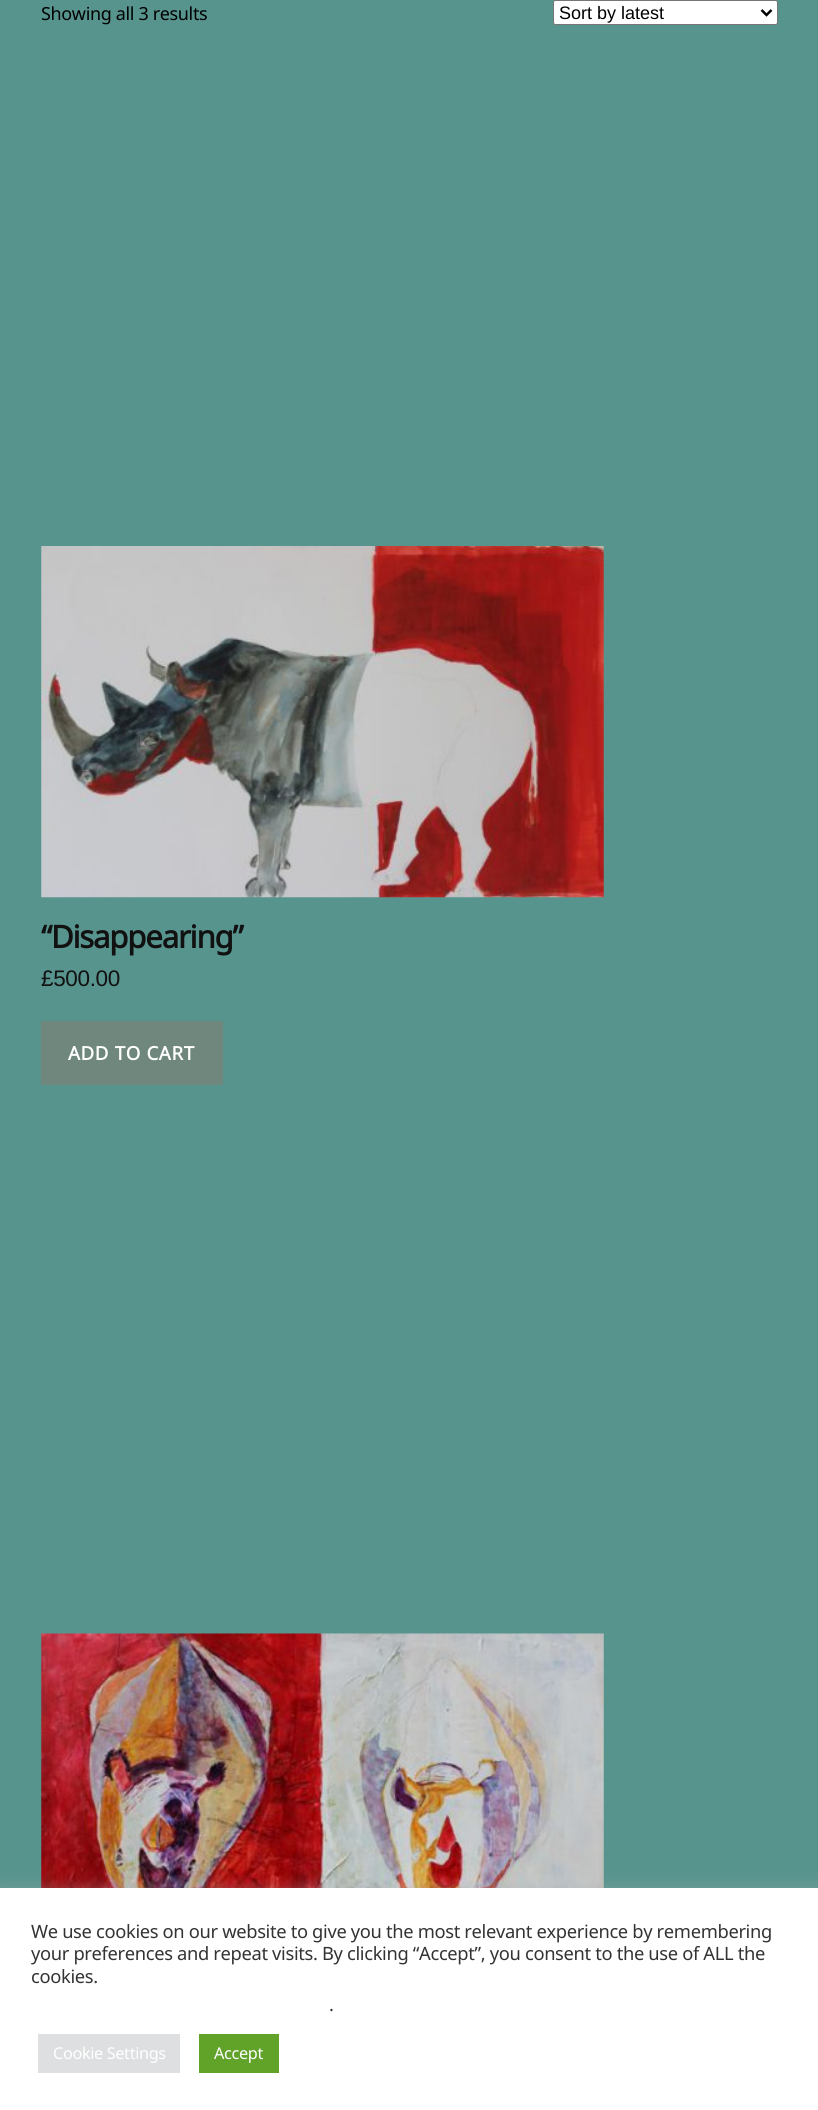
#include <cairo.h>
#include <math.h>
#include <stddef.h>


static void set_color(cairo_t *cr, unsigned color) {
    cairo_set_source_rgb(cr, (color >> 16) / 255.0, (color >> 8 & 255) / 255.0, (color & 255) / 255.0);
}

static void draw_text(cairo_t *cr, double x, double y, const char *s, const char *family, double size, int italic, int bold, unsigned color) {
    cairo_select_font_face(cr, family, italic ? CAIRO_FONT_SLANT_ITALIC : CAIRO_FONT_SLANT_NORMAL,
        bold ? CAIRO_FONT_WEIGHT_BOLD : CAIRO_FONT_WEIGHT_NORMAL);
    cairo_set_font_size(cr, size);
    set_color(cr, color);
    cairo_move_to(cr, x, y);
    cairo_show_text(cr, s);
}

static void draw_spaced(cairo_t *cr, double x, double y, const char *s, double letter, double word) {
    cairo_move_to(cr, x, y);
    while (*s) {
        char ch[5] = {0};
        int n = 0;
        do ch[n++] = *s++; while ((*s & 0xC0) == 0x80);
        cairo_show_text(cr, ch);
        cairo_rel_move_to(cr, letter + word * (*ch == ' '), 0);
    }
}

static void fill_rect(cairo_t *cr, double x, double y, double w, double h, unsigned color) {
    set_color(cr, color);
    cairo_rectangle(cr, x, y, w, h);
    cairo_fill(cr);
}

static void rounded_rect(cairo_t *cr, double x, double y, double w, double h, double r) {
    cairo_new_sub_path(cr);
    cairo_arc(cr, x + w - r, y + h - r, r, 0, M_PI / 2);
    cairo_arc(cr, x + r, y + h - r, r, M_PI / 2, M_PI);
    cairo_arc(cr, x + r, y + r, r, M_PI, 1.5 * M_PI);
    cairo_arc(cr, x + w - r, y + r, r, 1.5 * M_PI, 2 * M_PI);
    cairo_close_path(cr);
}

static void draw_shadow(cairo_t *cr, double x, double y, double w, double h, double r, double blur, double alpha) {
    cairo_push_group_with_content(cr, CAIRO_CONTENT_ALPHA);
    cairo_set_operator(cr, CAIRO_OPERATOR_SOURCE);
    for (int i = 15; i >= -15 && fmin(w, h) + blur * i / 3 > 0; i -= 2) {
        double e = blur * i / 6;
        cairo_set_source_rgba(cr, 0, 0, 0, alpha * erfc((i - 1) / 8.5) / 2);
        rounded_rect(cr, x - e, y - e, w + 2 * e, h + 2 * e, fmax(0, fmin(r + e + blur * .6, fmin(w, h) / 2 + e)));
        cairo_fill(cr);
    }
    cairo_pattern_t *soft = cairo_pop_group(cr);
    cairo_mask(cr, soft);
    cairo_pattern_destroy(soft);
}

static void draw_image(cairo_t *cr, const char *path, double x, double y, double w, double h) {
    cairo_surface_t *image = cairo_image_surface_create_from_png(path);
    cairo_save(cr);
    cairo_set_source_surface(cr, image, x, y);
    cairo_rectangle(cr, x, y, w, h);
    cairo_fill(cr);
    cairo_restore(cr);
    cairo_surface_destroy(image);
}

int main(void) {
    cairo_surface_t *surface = cairo_image_surface_create(CAIRO_FORMAT_RGB24, 818, 2110);
    cairo_t *cr = cairo_create(surface);
    cairo_font_options_t *options = cairo_font_options_create();
    cairo_font_options_set_hint_metrics(options, CAIRO_HINT_METRICS_OFF);
    cairo_font_options_set_hint_style(options, CAIRO_HINT_STYLE_NONE);
    cairo_set_font_options(cr, options);
    cairo_set_miter_limit(cr, 4);
    set_color(cr, 0x58948E);
    cairo_paint(cr);
    cairo_select_font_face(cr, "Noto Sans", CAIRO_FONT_SLANT_NORMAL, CAIRO_FONT_WEIGHT_NORMAL);
    cairo_set_font_size(cr, 18);
    set_color(cr, 0x000000);
    draw_spaced(cr, 41, 20, "Showing all 3 results", -0.35, 0);
    set_color(cr, 0xFFFFFF);
    rounded_rect(cr, 553.5, 0.5, 224, 24, 2);
    cairo_fill_preserve(cr);
    set_color(cr, 0x767676);
    cairo_set_line_width(cr, 1);
    cairo_stroke(cr);
    cairo_new_path(cr);
    cairo_move_to(cr, 761.5, 10);
    cairo_line_to(cr, 766.5, 15);
    cairo_line_to(cr, 771.5, 10);
    set_color(cr, 0x000000);
    cairo_set_line_width(cr, 2.5);
    cairo_stroke(cr);
    draw_text(cr, 559, 19, "Sort by latest", "Liberation Sans", 18, 0, 0, 0x000000);
    draw_image(cr, "assets/img1.png", 41, 546, 563, 352);
    cairo_select_font_face(cr, "Noto Sans", CAIRO_FONT_SLANT_NORMAL, CAIRO_FONT_WEIGHT_BOLD);
    cairo_set_font_size(cr, 31.25);
    set_color(cr, 0x111111);
    draw_spaced(cr, 41, 948, "“Disappearing”", -1.25, 0);
    cairo_select_font_face(cr, "Liberation Sans", CAIRO_FONT_SLANT_NORMAL, CAIRO_FONT_WEIGHT_NORMAL);
    cairo_set_font_size(cr, 22.5);
    draw_spaced(cr, 41, 986, "£500.00", -0.35, 0);
    fill_rect(cr, 41, 1021, 182, 64, 0x6F877D);
    cairo_select_font_face(cr, "Noto Sans", CAIRO_FONT_SLANT_NORMAL, CAIRO_FONT_WEIGHT_BOLD);
    cairo_set_font_size(cr, 18.75);
    set_color(cr, 0xFFFFFF);
    draw_spaced(cr, 68, 1060, "ADD TO CART", 0.6, 0);
    draw_image(cr, "assets/img2.png", 41, 1633, 563, 255);
    set_color(cr, 0xACABAB);
    draw_shadow(cr, 0, 1886, 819, 223, 0, 6, 0.3);
    fill_rect(cr, 0, 1888, 818, 222, 0xFFFFFF);
    cairo_select_font_face(cr, "Noto Sans", CAIRO_FONT_SLANT_NORMAL, CAIRO_FONT_WEIGHT_NORMAL);
    cairo_set_font_size(cr, 18.35);
    set_color(cr, 0x333333);
    draw_spaced(cr, 31, 1938, "We use cookies on our website to give you the most relevant experience by remembering", -0.35, 0);
    draw_spaced(cr, 31, 1960, "your preferences and repeat visits. By clicking “Accept”, you consent to the use of ALL the", -0.35, 0);
    draw_spaced(cr, 31, 1983, "cookies.", -0.35, 0);
    draw_spaced(cr, 329, 2011, ".", -0.35, 0);
    fill_rect(cr, 38, 2034, 142, 39, 0xDEDFE0);
    cairo_set_font_size(cr, 16.25);
    set_color(cr, 0xFFFFFF);
    draw_spaced(cr, 53, 2059, "Cookie Settings", -0.35, 0);
    fill_rect(cr, 199, 2034, 80, 39, 0x61A229);
    set_color(cr, 0xFFFFFF);
    draw_spaced(cr, 214, 2059, "Accept", -0.35, 0);
    cairo_surface_write_to_png(surface, "output.png");
    cairo_font_options_destroy(options);
    cairo_destroy(cr);
    cairo_surface_destroy(surface);
    return 0;
}
